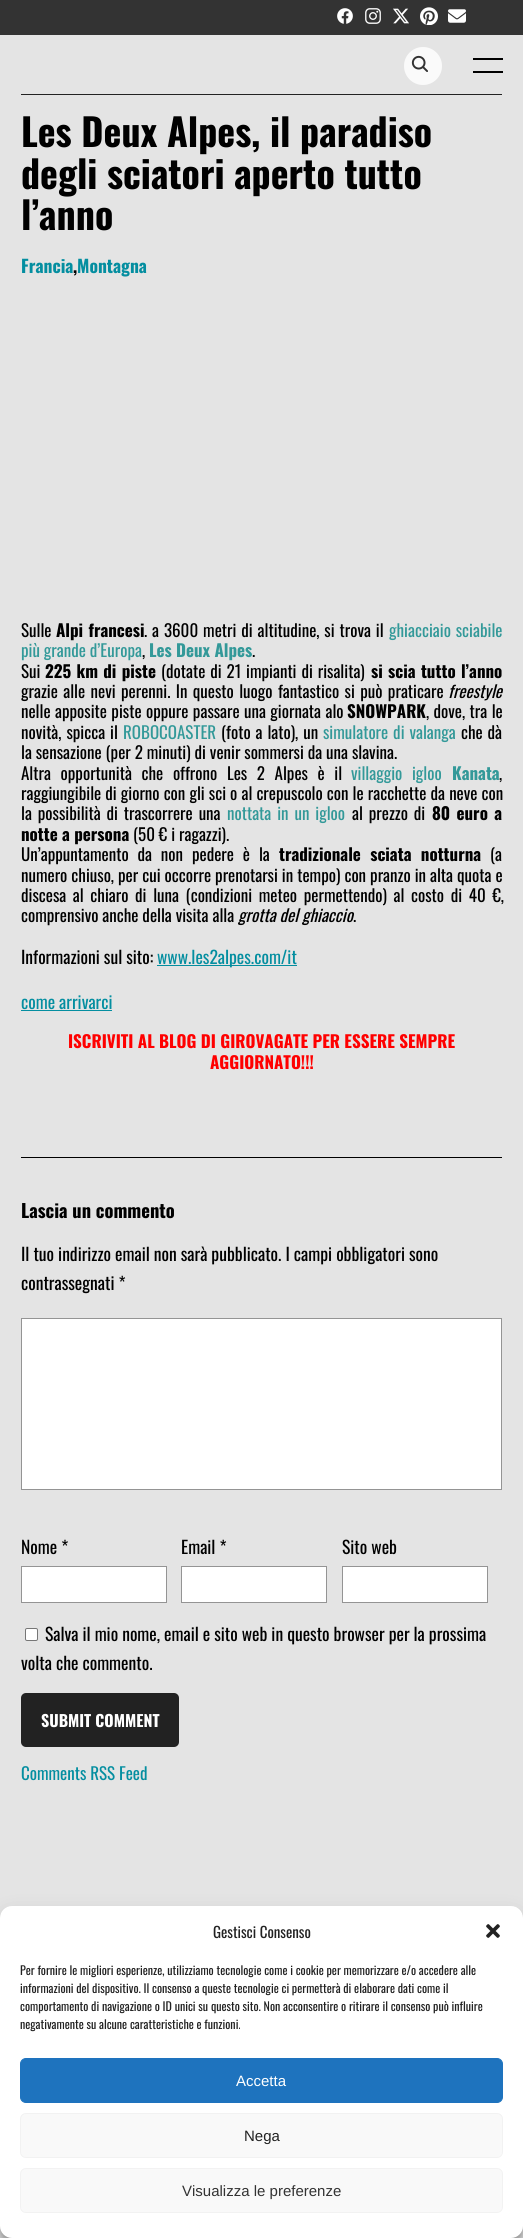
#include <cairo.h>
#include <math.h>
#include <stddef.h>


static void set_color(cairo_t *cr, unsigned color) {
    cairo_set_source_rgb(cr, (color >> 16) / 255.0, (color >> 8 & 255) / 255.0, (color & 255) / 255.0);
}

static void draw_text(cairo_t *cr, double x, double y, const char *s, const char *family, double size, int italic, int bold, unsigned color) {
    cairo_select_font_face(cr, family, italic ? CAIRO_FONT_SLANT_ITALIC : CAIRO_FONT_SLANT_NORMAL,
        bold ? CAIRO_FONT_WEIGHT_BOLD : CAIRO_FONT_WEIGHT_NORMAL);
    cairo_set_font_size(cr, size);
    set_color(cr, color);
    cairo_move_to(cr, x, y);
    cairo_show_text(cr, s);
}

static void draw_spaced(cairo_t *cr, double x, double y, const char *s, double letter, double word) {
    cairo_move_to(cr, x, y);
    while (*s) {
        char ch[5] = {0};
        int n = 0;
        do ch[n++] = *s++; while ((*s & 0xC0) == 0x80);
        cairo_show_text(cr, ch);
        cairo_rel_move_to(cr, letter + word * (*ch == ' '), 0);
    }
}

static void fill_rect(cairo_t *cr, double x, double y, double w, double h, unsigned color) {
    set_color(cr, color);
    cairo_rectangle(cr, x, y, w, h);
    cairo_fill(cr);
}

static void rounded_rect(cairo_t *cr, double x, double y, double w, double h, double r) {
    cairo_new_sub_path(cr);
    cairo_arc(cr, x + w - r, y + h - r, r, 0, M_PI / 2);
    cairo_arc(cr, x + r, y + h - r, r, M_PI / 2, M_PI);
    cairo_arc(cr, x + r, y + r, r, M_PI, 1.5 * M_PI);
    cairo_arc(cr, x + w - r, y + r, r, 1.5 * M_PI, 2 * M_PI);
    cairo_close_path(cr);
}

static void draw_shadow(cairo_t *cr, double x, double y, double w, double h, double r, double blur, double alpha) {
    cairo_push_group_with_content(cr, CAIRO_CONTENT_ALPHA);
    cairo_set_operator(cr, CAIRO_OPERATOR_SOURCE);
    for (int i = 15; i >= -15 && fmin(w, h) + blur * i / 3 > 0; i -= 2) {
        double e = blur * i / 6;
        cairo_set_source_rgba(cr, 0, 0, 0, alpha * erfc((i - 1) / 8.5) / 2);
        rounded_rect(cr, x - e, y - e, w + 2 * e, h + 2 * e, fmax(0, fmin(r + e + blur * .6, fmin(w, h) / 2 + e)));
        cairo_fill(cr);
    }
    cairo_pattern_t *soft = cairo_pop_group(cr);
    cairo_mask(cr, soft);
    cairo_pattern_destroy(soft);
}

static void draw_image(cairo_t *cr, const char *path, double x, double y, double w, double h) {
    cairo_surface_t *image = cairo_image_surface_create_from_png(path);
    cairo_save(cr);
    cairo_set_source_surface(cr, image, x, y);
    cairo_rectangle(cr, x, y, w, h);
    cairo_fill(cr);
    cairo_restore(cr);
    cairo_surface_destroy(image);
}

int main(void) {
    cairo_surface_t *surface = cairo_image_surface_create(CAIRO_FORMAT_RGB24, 523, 2238);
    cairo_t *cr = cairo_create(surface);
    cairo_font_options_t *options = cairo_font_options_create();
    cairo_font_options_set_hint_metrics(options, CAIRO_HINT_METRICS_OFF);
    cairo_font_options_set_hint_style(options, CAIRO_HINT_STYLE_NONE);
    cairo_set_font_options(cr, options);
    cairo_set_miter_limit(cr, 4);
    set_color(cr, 0xE4E4E4);
    cairo_paint(cr);
    fill_rect(cr, 0, 0, 523, 35, 0x333333);
    draw_image(cr, "assets/img1.png", 337, 8, 16, 16);
    draw_image(cr, "assets/img2.png", 365, 8, 16, 16);
    draw_image(cr, "assets/img3.png", 393, 8, 16, 16);
    draw_image(cr, "assets/img4.png", 420, 7, 18, 18);
    draw_image(cr, "assets/img5.png", 448, 9, 18, 14);
    fill_rect(cr, 21, 94, 481, 1, 0x222222);
    set_color(cr, 0xFAFAFA);
    cairo_arc(cr, 423, 66, 19, 0, 2 * M_PI);
    cairo_fill(cr);
    draw_image(cr, "assets/img6.png", 411, 55, 17, 17);
    fill_rect(cr, 473, 58, 30, 2, 0x000000);
    fill_rect(cr, 473, 71, 30, 2, 0x000000);
    draw_text(cr, 21, 147, "Les Deux Alpes, il paradiso", "Oswald", 37.9, 0, 1, 0x000000);
    draw_text(cr, 21, 189, "degli sciatori aperto tutto", "Oswald", 37.9, 0, 1, 0x000000);
    draw_text(cr, 21, 230, "l’anno", "Oswald", 37.9, 0, 1, 0x000000);
    draw_text(cr, 21, 273, "Francia", "Oswald", 17.6, 0, 1, 0x048EA0);
    draw_text(cr, 73, 273, ",", "Oswald", 17.6, 0, 1, 0x000000);
    draw_text(cr, 77, 273, "Montagna", "Oswald", 17.6, 0, 1, 0x048EA0);
    draw_text(cr, 21, 637, "Sulle", "Oswald", 17, 0, 0, 0x000000);
    cairo_select_font_face(cr, "Oswald", CAIRO_FONT_SLANT_NORMAL, CAIRO_FONT_WEIGHT_BOLD);
    draw_spaced(cr, 56, 637, "Alpi francesi", 0, 1);
    cairo_select_font_face(cr, "Oswald", CAIRO_FONT_SLANT_NORMAL, CAIRO_FONT_WEIGHT_NORMAL);
    draw_spaced(cr, 144, 637, ". a 3600 metri di altitudine, si trova il", 0, 1);
    set_color(cr, 0x339999);
    draw_spaced(cr, 389, 637, "ghiacciaio sciabile", 0, 1);
    draw_text(cr, 21, 657, "più grande d’Europa", "Oswald", 17, 0, 0, 0x339999);
    draw_text(cr, 142, 657, ",", "Oswald", 17, 0, 0, 0x000000);
    draw_text(cr, 149, 657, "Les Deux Alpes", "Oswald", 17, 0, 1, 0x339999);
    draw_text(cr, 252, 657, ".", "Oswald", 17, 0, 0, 0x000000);
    draw_text(cr, 21, 678, "Sui", "Oswald", 17, 0, 0, 0x000000);
    cairo_select_font_face(cr, "Oswald", CAIRO_FONT_SLANT_NORMAL, CAIRO_FONT_WEIGHT_BOLD);
    draw_spaced(cr, 45, 678, "225 km di piste", 0, 1);
    cairo_select_font_face(cr, "Oswald", CAIRO_FONT_SLANT_NORMAL, CAIRO_FONT_WEIGHT_NORMAL);
    draw_spaced(cr, 161, 678, "(dotate di 21 impianti di risalita)", 0, 1);
    cairo_select_font_face(cr, "Oswald", CAIRO_FONT_SLANT_NORMAL, CAIRO_FONT_WEIGHT_BOLD);
    draw_spaced(cr, 371, 678, "si scia tutto l’anno", 0, 1);
    cairo_select_font_face(cr, "Oswald", CAIRO_FONT_SLANT_NORMAL, CAIRO_FONT_WEIGHT_NORMAL);
    draw_spaced(cr, 21, 698, "grazie alle nevi perenni. In questo luogo fantastico si può praticare", 0, 1.5);
    draw_text(cr, 448, 698, "freestyle", "Oswald", 17, 1, 0, 0x000000);
    cairo_select_font_face(cr, "Oswald", CAIRO_FONT_SLANT_NORMAL, CAIRO_FONT_WEIGHT_NORMAL);
    draw_spaced(cr, 21, 718, "nelle apposite piste oppure passare una giornata alo", 0, 0.5);
    draw_text(cr, 347, 718, "SNOWPARK", "Oswald", 17, 0, 1, 0x000000);
    cairo_select_font_face(cr, "Oswald", CAIRO_FONT_SLANT_NORMAL, CAIRO_FONT_WEIGHT_NORMAL);
    draw_spaced(cr, 426, 718, ", dove, tra le", 0, 0.5);
    draw_spaced(cr, 21, 739, "novità, spicca il", 0, 1);
    draw_text(cr, 123, 739, "ROBOCOASTER", "Oswald", 17, 0, 0, 0x339999);
    set_color(cr, 0x000000);
    draw_spaced(cr, 221, 739, "(foto a lato), un", 0, 1);
    set_color(cr, 0x339999);
    draw_spaced(cr, 323, 739, "simulatore di valanga", 0, 1);
    set_color(cr, 0x000000);
    draw_spaced(cr, 461, 739, "che dà", 0, 1);
    draw_text(cr, 21, 759, "la sensazione (per 2 minuti) di venir sommersi da una slavina.", "Oswald", 17, 0, 0, 0x000000);
    draw_spaced(cr, 21, 780, "Altra opportunità che offrono Les 2 Alpes è il", 0, 5.75);
    set_color(cr, 0x339999);
    draw_spaced(cr, 351, 780, "villaggio igloo", 0, 5.75);
    draw_text(cr, 452, 780, "Kanata", "Oswald", 17, 0, 1, 0x339999);
    draw_text(cr, 499, 780, ",", "Oswald", 17, 0, 0, 0x000000);
    draw_spaced(cr, 21, 800, "raggiungibile di giorno con gli sci o al crepuscolo con le racchette da neve con", 0, 0.2);
    draw_spaced(cr, 21, 820, "la possibilità di trascorrere una", 0, 2);
    set_color(cr, 0x339999);
    draw_spaced(cr, 227, 820, "nottata in un igloo", 0, 2);
    set_color(cr, 0x000000);
    draw_spaced(cr, 352, 820, "al prezzo di", 0, 2);
    cairo_select_font_face(cr, "Oswald", CAIRO_FONT_SLANT_NORMAL, CAIRO_FONT_WEIGHT_BOLD);
    draw_spaced(cr, 432, 820, "80 euro a", 0, 2);
    draw_text(cr, 21, 841, "notte a persona", "Oswald", 17, 0, 1, 0x000000);
    draw_text(cr, 133, 841, "(50 € i ragazzi).", "Oswald", 17, 0, 0, 0x000000);
    draw_spaced(cr, 21, 861, "Un’appuntamento da non pedere è la", 0, 5);
    cairo_select_font_face(cr, "Oswald", CAIRO_FONT_SLANT_NORMAL, CAIRO_FONT_WEIGHT_BOLD);
    draw_spaced(cr, 279, 861, "tradizionale sciata notturna", 0, 5);
    draw_text(cr, 490, 861, "(a", "Oswald", 17, 0, 0, 0x000000);
    draw_spaced(cr, 21, 882, "numero chiuso, per cui occorre prenotarsi in tempo) con pranzo in alta quota e", 0, 0.1);
    draw_spaced(cr, 21, 902, "discesa al chiaro di luna (condizioni meteo permettendo) al costo di 40 €,", 0, 2.75);
    draw_text(cr, 21, 922, "comprensivo anche della visita alla", "Oswald", 17, 0, 0, 0x000000);
    draw_text(cr, 238, 922, "grotta del ghiaccio", "Oswald", 17, 1, 0, 0x000000);
    draw_text(cr, 353, 922, ".", "Oswald", 17, 0, 0, 0x000000);
    draw_text(cr, 21, 964, "Informazioni sul sito:", "Oswald", 17.6, 0, 0, 0x000000);
    fill_rect(cr, 157, 965, 140, 1, 0x048EA0);
    draw_text(cr, 157, 964, "www.les2alpes.com/it", "Oswald", 17.6, 0, 0, 0x048EA0);
    draw_text(cr, 21, 1009, "come arrivarci", "Oswald", 17.6, 0, 0, 0x048EA0);
    fill_rect(cr, 21, 1010, 91, 1, 0x048EA0);
    draw_text(cr, 68, 1048, "ISCRIVITI AL BLOG DI GIROVAGATE PER ESSERE SEMPRE", "Oswald", 17, 0, 1, 0xFF0000);
    draw_text(cr, 210, 1069, "AGGIORNATO!!!", "Oswald", 17, 0, 1, 0xFF0000);
    fill_rect(cr, 21, 1157, 481, 1, 0x000000);
    draw_text(cr, 21, 1218, "Lascia un commento", "Oswald", 18.5, 0, 1, 0x000000);
    draw_text(cr, 21, 1261, "Il tuo indirizzo email non sarà pubblicato. I campi obbligatori sono", "Oswald", 17.6, 0, 0, 0x000000);
    draw_text(cr, 21, 1290, "contrassegnati *", "Oswald", 17.6, 0, 0, 0x000000);
    set_color(cr, 0xFFFFFF);
    cairo_rectangle(cr, 21.5, 1318.5, 480, 171);
    cairo_fill_preserve(cr);
    set_color(cr, 0x949494);
    cairo_set_line_width(cr, 1);
    cairo_stroke(cr);
    draw_text(cr, 21, 1554, "Nome *", "Oswald", 17.6, 0, 0, 0x000000);
    set_color(cr, 0xFFFFFF);
    cairo_rectangle(cr, 21.5, 1566.5, 145, 36);
    cairo_fill_preserve(cr);
    set_color(cr, 0x949494);
    cairo_stroke(cr);
    draw_text(cr, 181, 1554, "Email *", "Oswald", 17.6, 0, 0, 0x000000);
    set_color(cr, 0xFFFFFF);
    cairo_rectangle(cr, 181.5, 1566.5, 145, 36);
    cairo_fill_preserve(cr);
    set_color(cr, 0x949494);
    cairo_stroke(cr);
    draw_text(cr, 342, 1554, "Sito web", "Oswald", 17.6, 0, 0, 0x000000);
    set_color(cr, 0xFFFFFF);
    cairo_rectangle(cr, 342.5, 1566.5, 145, 36);
    cairo_fill_preserve(cr);
    set_color(cr, 0x949494);
    cairo_stroke(cr);
    set_color(cr, 0xFFFFFF);
    rounded_rect(cr, 25.5, 1628.5, 12, 12, 1.5);
    cairo_fill_preserve(cr);
    set_color(cr, 0x767676);
    cairo_stroke(cr);
    draw_text(cr, 45, 1641, "Salva il mio nome, email e sito web in questo browser per la prossima", "Oswald", 17.6, 0, 0, 0x000000);
    draw_text(cr, 21, 1670, "volta che commento.", "Oswald", 17.6, 0, 0, 0x000000);
    set_color(cr, 0x222222);
    rounded_rect(cr, 21, 1693, 158, 54, 5);
    cairo_fill(cr);
    draw_text(cr, 41, 1727, "SUBMIT COMMENT", "Oswald", 16, 0, 1, 0xFFFFFF);
    draw_text(cr, 21, 1780, "Comments RSS Feed", "Oswald", 17, 0, 0, 0x048EA0);
    set_color(cr, 0x000000);
    draw_shadow(cr, 0, 1912, 523, 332, 12, 3, 0.23);
    draw_shadow(cr, 0, 1916, 523, 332, 12, 10, 0.19);
    set_color(cr, 0xFFFFFF);
    rounded_rect(cr, 0, 1906, 523, 332, 12);
    cairo_fill(cr);
    draw_text(cr, 213, 1938, "Gestisci Consenso", "Oswald", 15, 0, 0, 0x222222);
    draw_image(cr, "assets/img7.png", 486, 1924, 14, 14);
    draw_text(cr, 20, 1975, "Per fornire le migliori esperienze, utilizziamo tecnologie come i cookie per memorizzare e/o accedere alle", "Oswald", 12, 0, 0, 0x222222);
    draw_text(cr, 20, 1993, "informazioni del dispositivo. Il consenso a queste tecnologie ci permetterà di elaborare dati come il", "Oswald", 12, 0, 0, 0x222222);
    draw_text(cr, 20, 2011, "comportamento di navigazione o ID unici su questo sito. Non acconsentire o ritirare il consenso può influire", "Oswald", 12, 0, 0, 0x222222);
    draw_text(cr, 20, 2029, "negativamente su alcune caratteristiche e funzioni.", "Oswald", 12, 0, 0, 0x222222);
    set_color(cr, 0x1E73BE);
    rounded_rect(cr, 20.5, 2058.5, 482, 44, 5.5);
    cairo_fill_preserve(cr);
    cairo_stroke(cr);
    draw_text(cr, 236, 2086, "Accetta", "Liberation Sans", 15, 0, 0, 0xFFFFFF);
    set_color(cr, 0xF9F9F9);
    rounded_rect(cr, 20.5, 2113.5, 482, 44, 5.5);
    cairo_fill_preserve(cr);
    set_color(cr, 0xF2F2F2);
    cairo_stroke(cr);
    draw_text(cr, 244, 2141, "Nega", "Liberation Sans", 15, 0, 0, 0x222222);
    set_color(cr, 0xF9F9F9);
    rounded_rect(cr, 20.5, 2168.5, 482, 44, 5.5);
    cairo_fill_preserve(cr);
    set_color(cr, 0xF2F2F2);
    cairo_stroke(cr);
    draw_text(cr, 182, 2196, "Visualizza le preferenze", "Liberation Sans", 15, 0, 0, 0x333333);
    cairo_surface_write_to_png(surface, "output.png");
    cairo_font_options_destroy(options);
    cairo_destroy(cr);
    cairo_surface_destroy(surface);
    return 0;
}
